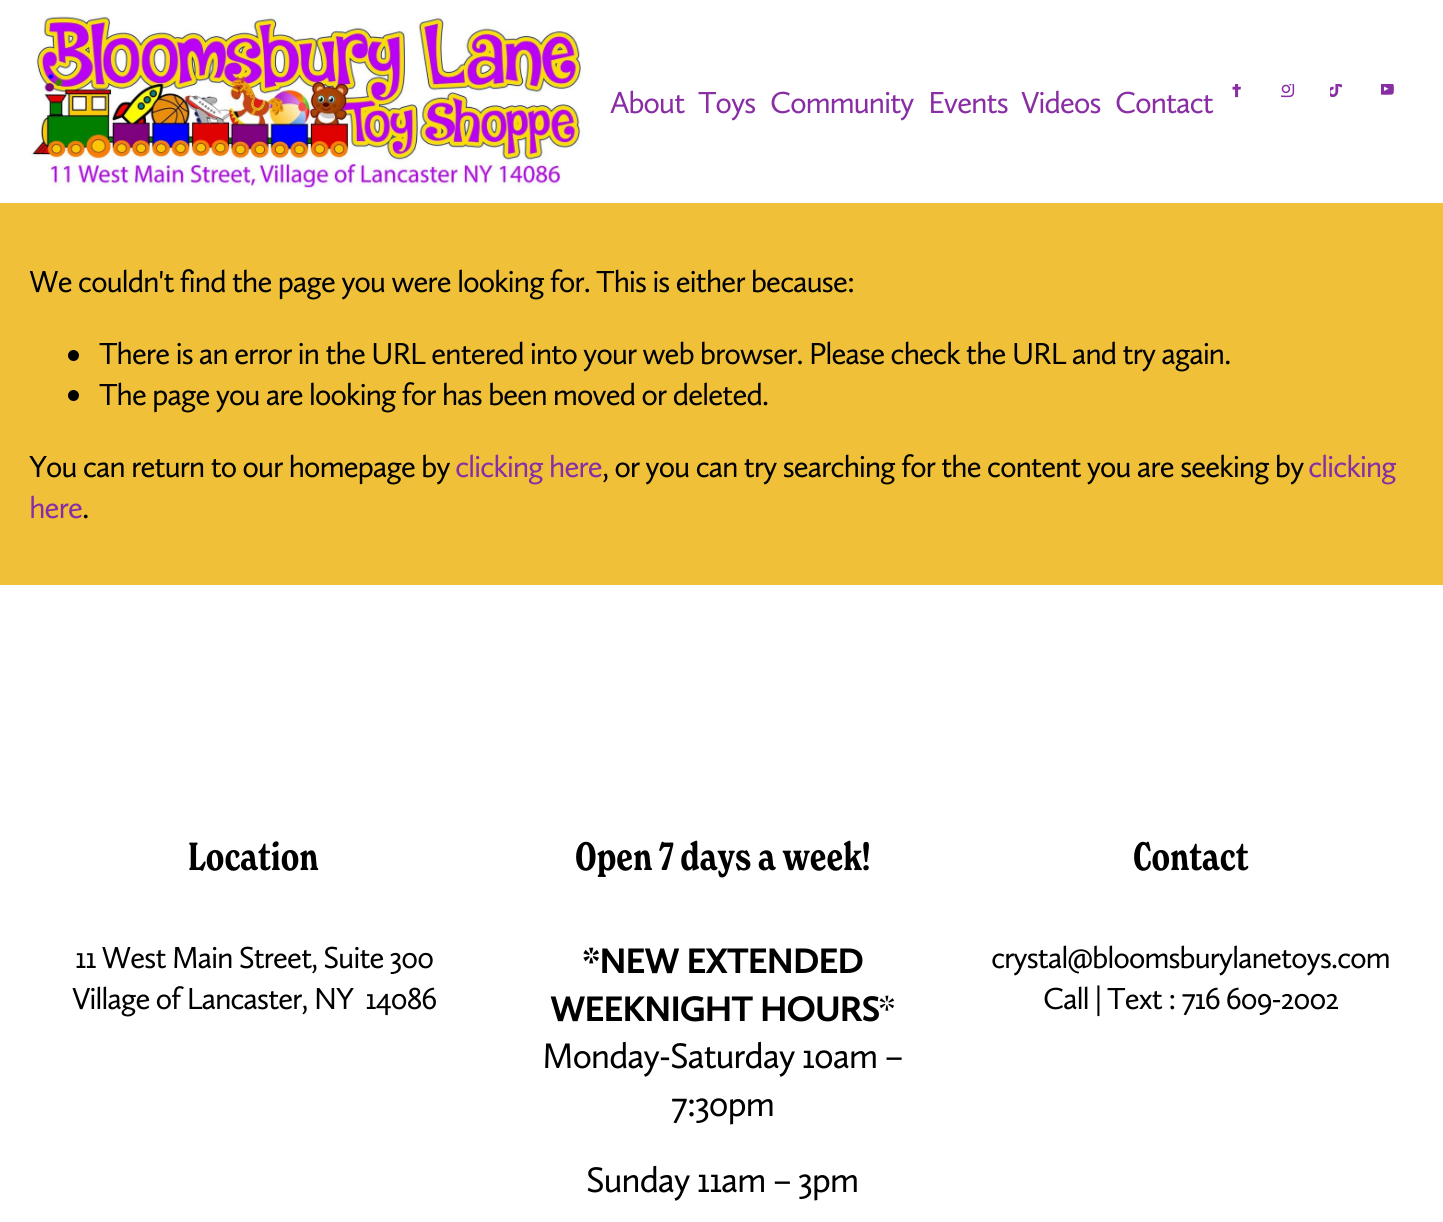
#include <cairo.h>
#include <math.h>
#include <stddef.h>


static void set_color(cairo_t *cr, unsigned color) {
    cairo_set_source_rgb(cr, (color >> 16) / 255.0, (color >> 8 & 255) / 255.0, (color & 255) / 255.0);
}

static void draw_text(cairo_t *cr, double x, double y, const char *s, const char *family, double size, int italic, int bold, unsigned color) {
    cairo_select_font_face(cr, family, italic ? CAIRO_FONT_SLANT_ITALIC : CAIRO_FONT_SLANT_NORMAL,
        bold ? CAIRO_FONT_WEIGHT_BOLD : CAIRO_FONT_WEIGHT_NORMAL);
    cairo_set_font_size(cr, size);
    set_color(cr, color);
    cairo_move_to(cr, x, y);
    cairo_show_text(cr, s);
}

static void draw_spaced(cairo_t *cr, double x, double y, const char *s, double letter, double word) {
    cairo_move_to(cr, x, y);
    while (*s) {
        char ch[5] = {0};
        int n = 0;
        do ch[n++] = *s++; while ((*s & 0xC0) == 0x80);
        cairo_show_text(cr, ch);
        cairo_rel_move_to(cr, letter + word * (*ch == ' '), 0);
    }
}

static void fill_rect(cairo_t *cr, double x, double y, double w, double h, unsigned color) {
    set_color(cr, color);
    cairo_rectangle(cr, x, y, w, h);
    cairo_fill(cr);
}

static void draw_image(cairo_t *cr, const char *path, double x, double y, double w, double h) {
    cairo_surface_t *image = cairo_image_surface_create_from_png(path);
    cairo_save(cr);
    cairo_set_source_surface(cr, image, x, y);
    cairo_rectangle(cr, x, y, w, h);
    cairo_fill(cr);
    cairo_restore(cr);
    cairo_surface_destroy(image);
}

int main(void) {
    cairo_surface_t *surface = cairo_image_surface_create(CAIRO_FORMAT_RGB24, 1443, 1222);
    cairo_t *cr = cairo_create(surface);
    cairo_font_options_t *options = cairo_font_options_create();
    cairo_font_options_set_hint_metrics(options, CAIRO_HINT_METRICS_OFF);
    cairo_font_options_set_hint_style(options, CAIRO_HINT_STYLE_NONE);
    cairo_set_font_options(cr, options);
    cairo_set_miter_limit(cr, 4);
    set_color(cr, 0xF0C138);
    cairo_paint(cr);
    fill_rect(cr, 0, 0, 1443, 203, 0xFFFFFF);
    draw_image(cr, "assets/img1.png", 30, 16, 553, 172);
    cairo_select_font_face(cr, "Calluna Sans", CAIRO_FONT_SLANT_NORMAL, CAIRO_FONT_WEIGHT_NORMAL);
    cairo_set_font_size(cr, 31.45);
    set_color(cr, 0x892DA5);
    draw_spaced(cr, 610, 113, "About", -1.25, 0);
    draw_spaced(cr, 698, 113, "Toys", -1.25, 0);
    draw_spaced(cr, 770, 113, "Community", -1.25, 0);
    draw_spaced(cr, 928, 113, "Events", -1.25, 0);
    draw_spaced(cr, 1021, 113, "Videos", -1.25, 0);
    draw_spaced(cr, 1115, 113, "Contact", -1.25, 0);
    draw_image(cr, "assets/img2.png", 1232, 84, 9, 14);
    draw_image(cr, "assets/img3.png", 1281, 84, 14, 14);
    draw_image(cr, "assets/img4.png", 1330, 84, 13, 14);
    draw_image(cr, "assets/img5.png", 1381, 84, 13, 11);
    set_color(cr, 0x000000);
    draw_spaced(cr, 29, 292, "We couldn't find the page you were looking for. This is either because:", -1.25, 0);
    cairo_new_path(cr);
    cairo_arc(cr, 73.5, 355.5, 5.5, 0, 2 * M_PI);
    cairo_fill(cr);
    draw_spaced(cr, 99, 364, "There is an error in the URL entered into your web browser. Please check the URL and try again.", -1.25, 0);
    cairo_new_path(cr);
    cairo_arc(cr, 73.5, 395.5, 5.5, 0, 2 * M_PI);
    cairo_fill(cr);
    draw_spaced(cr, 99, 405, "The page you are looking for has been moved or deleted.", -1.25, 0);
    draw_spaced(cr, 29, 477, "You can return to our homepage by", -1.25, 0);
    set_color(cr, 0x892DA5);
    draw_spaced(cr, 455, 477, "clicking here", -1.25, 0);
    set_color(cr, 0x000000);
    draw_spaced(cr, 602, 477, ", or you can try searching for the content you are seeking by", -1.25, 0);
    set_color(cr, 0x892DA5);
    draw_spaced(cr, 1308, 477, "clicking", -1.25, 0);
    draw_spaced(cr, 29, 518, "here", -1.25, 0);
    set_color(cr, 0x000000);
    draw_spaced(cr, 82, 518, ".", -1.25, 0);
    fill_rect(cr, 0, 585, 1443, 637, 0xFFFFFF);
    draw_text(cr, 188, 870, "Location", "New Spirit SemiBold", 38.5, 0, 0, 0x000000);
    cairo_select_font_face(cr, "Calluna Sans", CAIRO_FONT_SLANT_NORMAL, CAIRO_FONT_WEIGHT_NORMAL);
    cairo_set_font_size(cr, 31.45);
    draw_spaced(cr, 75, 968, "11 West Main Street, Suite 300", -1.25, 0);
    draw_spaced(cr, 72, 1009, "Village of Lancaster, NY  14086", -1.25, 0);
    draw_text(cr, 575, 870, "Open 7 days a week!", "New Spirit SemiBold", 38.5, 0, 0, 0x000000);
    cairo_select_font_face(cr, "Calluna Sans", CAIRO_FONT_SLANT_NORMAL, CAIRO_FONT_WEIGHT_BOLD);
    cairo_set_font_size(cr, 36.75);
    draw_spaced(cr, 582, 973, "*NEW EXTENDED", -1.25, 0);
    draw_spaced(cr, 550, 1021, "WEEKNIGHT HOURS", -1.25, 0);
    cairo_select_font_face(cr, "Calluna Sans", CAIRO_FONT_SLANT_NORMAL, CAIRO_FONT_WEIGHT_NORMAL);
    draw_spaced(cr, 878, 1021, "*", -1.25, 0);
    draw_spaced(cr, 542, 1068, "Monday-Saturday 10am –", -1.25, 0);
    draw_spaced(cr, 671, 1116, "7:30pm", -1.25, 0);
    draw_spaced(cr, 586, 1192, "Sunday 11am – 3pm", -1.25, 0);
    draw_text(cr, 1133, 870, "Contact", "New Spirit SemiBold", 38.5, 0, 0, 0x000000);
    cairo_select_font_face(cr, "Calluna Sans", CAIRO_FONT_SLANT_NORMAL, CAIRO_FONT_WEIGHT_NORMAL);
    cairo_set_font_size(cr, 31.45);
    draw_spaced(cr, 991, 968, "crystal@bloomsburylanetoys.com", -1.25, 0);
    draw_spaced(cr, 1043, 1009, "Call | Text : 716 609-2002", -1.25, 0);
    cairo_surface_write_to_png(surface, "output.png");
    cairo_font_options_destroy(options);
    cairo_destroy(cr);
    cairo_surface_destroy(surface);
    return 0;
}
